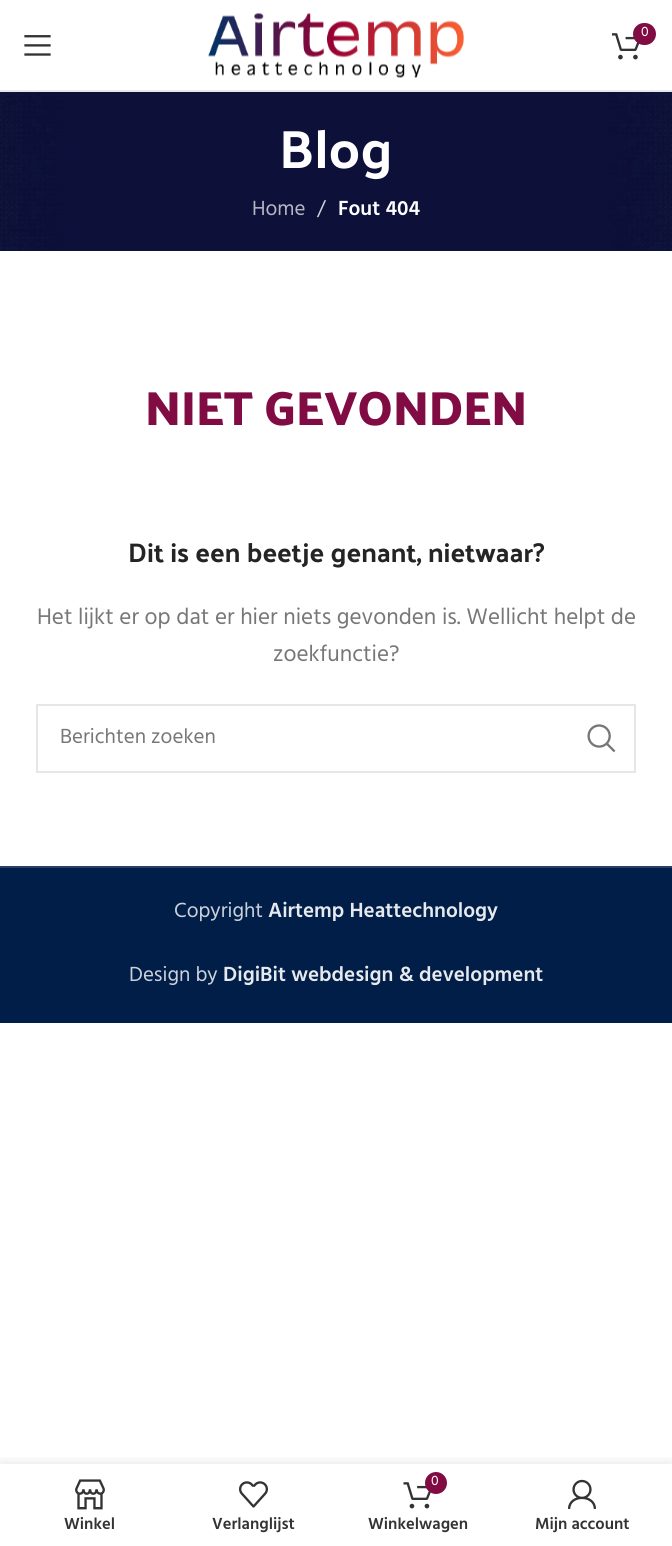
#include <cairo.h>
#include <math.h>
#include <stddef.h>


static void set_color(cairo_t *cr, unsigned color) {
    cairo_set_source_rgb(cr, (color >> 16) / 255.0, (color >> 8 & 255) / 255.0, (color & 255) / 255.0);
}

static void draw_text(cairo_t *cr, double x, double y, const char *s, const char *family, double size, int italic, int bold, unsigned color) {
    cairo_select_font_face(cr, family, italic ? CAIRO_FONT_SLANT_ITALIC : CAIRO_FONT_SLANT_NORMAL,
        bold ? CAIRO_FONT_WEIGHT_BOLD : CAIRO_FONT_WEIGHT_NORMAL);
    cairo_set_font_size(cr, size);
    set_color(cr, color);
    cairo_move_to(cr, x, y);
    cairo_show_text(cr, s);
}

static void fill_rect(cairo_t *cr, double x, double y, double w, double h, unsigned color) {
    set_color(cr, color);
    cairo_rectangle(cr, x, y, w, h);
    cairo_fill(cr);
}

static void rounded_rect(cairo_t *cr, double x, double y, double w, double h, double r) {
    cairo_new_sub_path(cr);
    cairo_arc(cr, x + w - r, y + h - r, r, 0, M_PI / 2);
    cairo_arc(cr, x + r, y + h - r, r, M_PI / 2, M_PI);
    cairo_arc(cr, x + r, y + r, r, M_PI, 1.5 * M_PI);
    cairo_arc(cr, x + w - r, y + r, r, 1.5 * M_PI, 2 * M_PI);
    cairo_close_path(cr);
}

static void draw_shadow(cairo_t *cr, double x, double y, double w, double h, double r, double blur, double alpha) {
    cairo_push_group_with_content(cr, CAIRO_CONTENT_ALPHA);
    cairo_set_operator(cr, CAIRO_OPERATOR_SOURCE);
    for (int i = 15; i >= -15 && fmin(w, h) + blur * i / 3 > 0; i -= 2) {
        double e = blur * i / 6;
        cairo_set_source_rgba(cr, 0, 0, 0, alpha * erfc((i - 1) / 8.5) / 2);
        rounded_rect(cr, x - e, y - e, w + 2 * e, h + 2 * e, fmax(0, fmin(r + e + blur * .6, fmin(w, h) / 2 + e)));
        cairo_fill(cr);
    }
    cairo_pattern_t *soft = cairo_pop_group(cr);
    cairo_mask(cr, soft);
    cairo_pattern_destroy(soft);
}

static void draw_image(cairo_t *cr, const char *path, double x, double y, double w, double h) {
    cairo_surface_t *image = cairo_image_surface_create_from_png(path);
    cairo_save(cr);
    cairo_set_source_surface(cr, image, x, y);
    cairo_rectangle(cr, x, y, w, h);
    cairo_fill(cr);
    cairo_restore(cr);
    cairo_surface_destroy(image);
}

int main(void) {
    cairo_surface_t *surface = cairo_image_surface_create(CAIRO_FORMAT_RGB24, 672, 1546);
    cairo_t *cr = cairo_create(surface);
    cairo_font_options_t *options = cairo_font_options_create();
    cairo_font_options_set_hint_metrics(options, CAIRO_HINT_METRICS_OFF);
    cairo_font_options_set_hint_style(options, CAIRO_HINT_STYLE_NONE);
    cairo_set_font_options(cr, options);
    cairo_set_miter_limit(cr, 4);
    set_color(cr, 0xFFFFFF);
    cairo_paint(cr);
    fill_rect(cr, 0, 90, 672, 2, 0xE8E8E8);
    draw_image(cr, "assets/img1.png", 208, 13, 256, 65);
    draw_image(cr, "assets/img2.png", 612, 33, 28, 27);
    set_color(cr, 0x810C43);
    rounded_rect(cr, 633, 23, 23, 22, 11);
    cairo_fill(cr);
    draw_text(cr, 641, 36, "0", "Hind", 14, 0, 0, 0xFFFFFF);
    draw_image(cr, "assets/img3.png", 24, 35, 27, 21);
    fill_rect(cr, 0, 250, 672, 1, 0x001E47);
    draw_image(cr, "assets/img4.png", 0, 92, 672, 159);
    draw_text(cr, 279, 168, "Blog", "Palanquin Dark", 54, 0, 0, 0xFFFFFF);
    draw_text(cr, 252, 215, "Home", "Hind", 21, 0, 0, 0xB6B7C4);
    draw_text(cr, 317, 215, "/", "Hind", 21, 0, 0, 0xCCD2DA);
    draw_text(cr, 338, 215, "Fout 404", "Hind SemiBold", 21, 0, 0, 0xFFFFFF);
    draw_text(cr, 145, 425, "NIET GEVONDEN", "Palanquin Dark SemiBold", 48, 0, 0, 0x810C43);
    draw_text(cr, 128, 562, "Dit is een beetje genant, nietwaar?", "Palanquin Dark", 27, 0, 0, 0x242424);
    draw_text(cr, 37, 624, "Het lijkt er op dat er hier niets gevonden is. Wellicht helpt de", "Hind", 23.1, 0, 0, 0x777777);
    draw_text(cr, 273, 661, "zoekfunctie?", "Hind", 23.1, 0, 0, 0x777777);
    cairo_rectangle(cr, 37, 705, 598, 67);
    set_color(cr, 0xE6E6E6);
    cairo_stroke(cr);
    draw_text(cr, 60, 743, "Berichten zoeken", "Hind", 21, 0, 0, 0x777777);
    draw_image(cr, "assets/img5.png", 587, 724, 29, 29);
    fill_rect(cr, 0, 868, 672, 155, 0x001E47);
    fill_rect(cr, 0, 866, 672, 2, 0x264063);
    draw_text(cr, 174, 917, "Copyright", "Hind", 21, 0, 0, 0xCCD2DA);
    draw_text(cr, 268, 917, "Airtemp Heattechnology", "Hind SemiBold", 21, 0, 0, 0xE6E9ED);
    draw_text(cr, 129, 981, "Design by", "Hind", 21, 0, 0, 0xCCD2DA);
    draw_text(cr, 223, 981, "DigiBit webdesign & development", "Hind SemiBold", 21, 0, 0, 0xE6E9ED);
    cairo_save(cr);
    cairo_rectangle(cr, 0, 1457, 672, 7);
    cairo_clip(cr);
    set_color(cr, 0x000000);
    draw_shadow(cr, 0, 1464, 672, 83, 0, 7, 0.12);
    cairo_restore(cr);
    draw_image(cr, "assets/img6.png", 75, 1479, 30, 31);
    draw_text(cr, 64, 1529, "Winkel", "Hind SemiBold", 16.5, 0, 0, 0x333333);
    draw_image(cr, "assets/img7.png", 239, 1481, 29, 27);
    draw_text(cr, 212, 1529, "Verlanglijst", "Hind SemiBold", 16.5, 0, 0, 0x333333);
    draw_image(cr, "assets/img8.png", 403, 1482, 28, 27);
    set_color(cr, 0x810C43);
    cairo_arc(cr, 436, 1483, 11, 0, 2 * M_PI);
    cairo_fill(cr);
    draw_text(cr, 431, 1485, "0", "Hind", 14, 0, 0, 0xFFFFFF);
    draw_text(cr, 368, 1529, "Winkelwagen", "Hind SemiBold", 16.5, 0, 0, 0x333333);
    draw_image(cr, "assets/img9.png", 568, 1479, 28, 30);
    draw_text(cr, 535, 1529, "Mijn account", "Hind SemiBold", 16.5, 0, 0, 0x333333);
    cairo_surface_write_to_png(surface, "output.png");
    cairo_font_options_destroy(options);
    cairo_destroy(cr);
    cairo_surface_destroy(surface);
    return 0;
}
